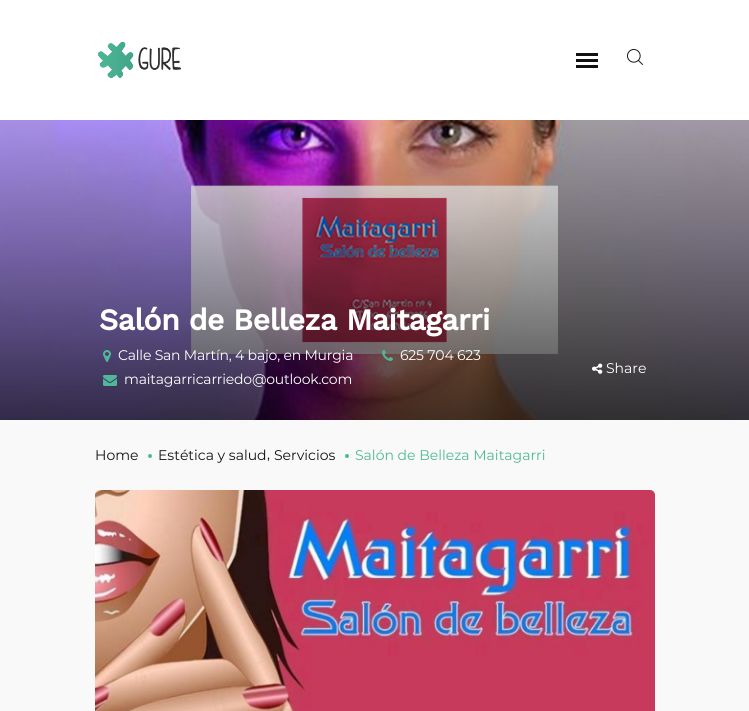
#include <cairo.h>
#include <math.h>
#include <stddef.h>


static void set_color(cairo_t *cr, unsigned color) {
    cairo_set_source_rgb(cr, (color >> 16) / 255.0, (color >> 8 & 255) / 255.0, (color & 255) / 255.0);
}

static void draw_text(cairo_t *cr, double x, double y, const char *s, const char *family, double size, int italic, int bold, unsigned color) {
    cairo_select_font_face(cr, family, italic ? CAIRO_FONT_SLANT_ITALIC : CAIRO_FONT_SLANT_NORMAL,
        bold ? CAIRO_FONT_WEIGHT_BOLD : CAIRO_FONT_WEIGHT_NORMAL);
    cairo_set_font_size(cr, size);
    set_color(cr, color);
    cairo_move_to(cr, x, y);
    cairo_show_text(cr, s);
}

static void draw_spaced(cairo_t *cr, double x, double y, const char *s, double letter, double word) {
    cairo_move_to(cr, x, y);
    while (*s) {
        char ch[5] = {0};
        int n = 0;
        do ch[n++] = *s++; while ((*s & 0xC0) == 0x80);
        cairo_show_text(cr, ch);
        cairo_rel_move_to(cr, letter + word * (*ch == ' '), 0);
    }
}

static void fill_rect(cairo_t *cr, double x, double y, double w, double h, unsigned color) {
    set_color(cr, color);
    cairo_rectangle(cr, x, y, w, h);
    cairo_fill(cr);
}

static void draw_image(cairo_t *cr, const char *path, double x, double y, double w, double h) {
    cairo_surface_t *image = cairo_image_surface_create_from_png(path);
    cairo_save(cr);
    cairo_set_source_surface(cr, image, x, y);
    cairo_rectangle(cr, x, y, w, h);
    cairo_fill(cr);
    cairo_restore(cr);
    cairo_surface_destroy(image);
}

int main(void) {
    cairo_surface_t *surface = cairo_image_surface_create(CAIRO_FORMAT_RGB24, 749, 711);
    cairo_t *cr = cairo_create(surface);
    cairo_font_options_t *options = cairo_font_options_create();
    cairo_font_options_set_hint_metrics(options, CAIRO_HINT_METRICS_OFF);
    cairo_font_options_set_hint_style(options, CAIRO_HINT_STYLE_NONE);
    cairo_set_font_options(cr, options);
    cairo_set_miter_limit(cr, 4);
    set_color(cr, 0xF9F9F9);
    cairo_paint(cr);
    fill_rect(cr, 0, 0, 749, 120, 0xFFFFFF);
    draw_image(cr, "assets/img1.png", 97, 41, 84, 38);
    fill_rect(cr, 576, 59, 22, 3, 0x141111);
    fill_rect(cr, 576, 53, 22, 3, 0x141111);
    fill_rect(cr, 576, 65, 22, 3, 0x141111);
    draw_image(cr, "assets/img2.png", 627, 49, 16, 16);
    draw_image(cr, "assets/img3.png", 0, 120, 749, 300);
    cairo_select_font_face(cr, "Work Sans", CAIRO_FONT_SLANT_NORMAL, CAIRO_FONT_WEIGHT_BOLD);
    cairo_set_font_size(cr, 30);
    set_color(cr, 0xFFFFFF);
    draw_spaced(cr, 99, 330, "Salón de Belleza Maitagarri", -0.4, 0);
    draw_image(cr, "assets/img4.png", 103, 350, 8, 12);
    cairo_select_font_face(cr, "Montserrat", CAIRO_FONT_SLANT_NORMAL, CAIRO_FONT_WEIGHT_NORMAL);
    cairo_set_font_size(cr, 14);
    draw_spaced(cr, 118, 360, "Calle San Martín, 4 bajo, en Murgia", -0.2, 0);
    draw_image(cr, "assets/img5.png", 382, 350, 11, 11);
    draw_spaced(cr, 400, 360, "625 704 623", -0.2, 0);
    draw_image(cr, "assets/img6.png", 103, 375, 14, 11);
    draw_spaced(cr, 124, 384, "maitagarricarriedo@outlook.com", -0.2, 0);
    draw_image(cr, "assets/img7.png", 592, 363, 11, 11);
    draw_text(cr, 606, 373, "Share", "Montserrat", 14, 0, 0, 0xFFFFFF);
    draw_text(cr, 95, 460, "Home", "Montserrat", 14, 0, 0, 0x141111);
    set_color(cr, 0x50B798);
    cairo_new_path(cr);
    cairo_arc(cr, 150, 456, 2, 0, 2 * M_PI);
    cairo_fill(cr);
    draw_text(cr, 158, 460, "Estética y salud", "Montserrat", 14, 0, 0, 0x141111);
    draw_text(cr, 274, 460, "Servicios", "Montserrat", 14, 0, 0, 0x141111);
    set_color(cr, 0x50B798);
    cairo_new_path(cr);
    cairo_arc(cr, 347, 456, 2, 0, 2 * M_PI);
    cairo_fill(cr);
    draw_text(cr, 355, 460, "Salón de Belleza Maitagarri", "Montserrat", 14, 0, 0, 0x50B798);
    draw_text(cr, 267, 459, ",", "Montserrat", 14, 0, 0, 0x141111);
    draw_image(cr, "assets/img8.png", 95, 490, 560, 221);
    cairo_surface_write_to_png(surface, "output.png");
    cairo_font_options_destroy(options);
    cairo_destroy(cr);
    cairo_surface_destroy(surface);
    return 0;
}
